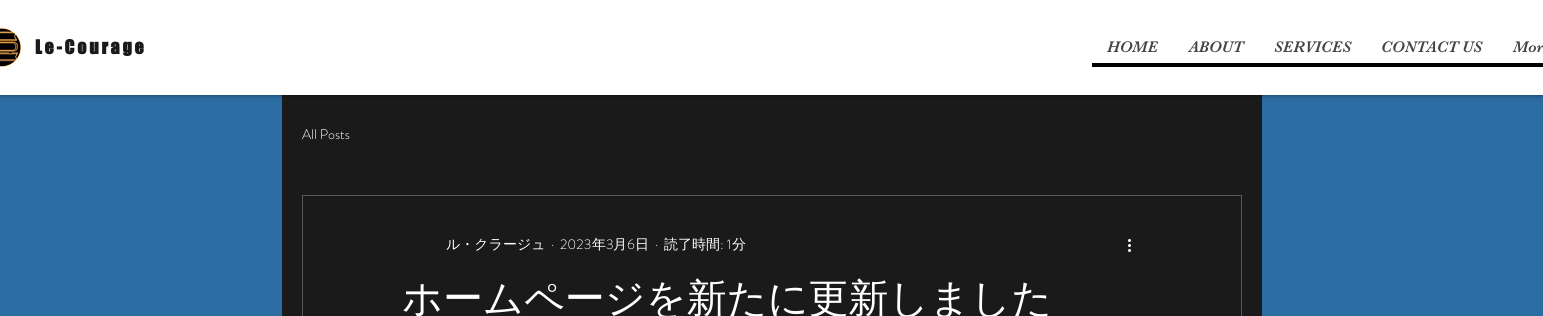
#include <cairo.h>
#include <math.h>
#include <stddef.h>


static void set_color(cairo_t *cr, unsigned color) {
    cairo_set_source_rgb(cr, (color >> 16) / 255.0, (color >> 8 & 255) / 255.0, (color & 255) / 255.0);
}

static void draw_text(cairo_t *cr, double x, double y, const char *s, const char *family, double size, int italic, int bold, unsigned color) {
    cairo_select_font_face(cr, family, italic ? CAIRO_FONT_SLANT_ITALIC : CAIRO_FONT_SLANT_NORMAL,
        bold ? CAIRO_FONT_WEIGHT_BOLD : CAIRO_FONT_WEIGHT_NORMAL);
    cairo_set_font_size(cr, size);
    set_color(cr, color);
    cairo_move_to(cr, x, y);
    cairo_show_text(cr, s);
}

static void draw_spaced(cairo_t *cr, double x, double y, const char *s, double letter, double word) {
    cairo_move_to(cr, x, y);
    while (*s) {
        char ch[5] = {0};
        int n = 0;
        do ch[n++] = *s++; while ((*s & 0xC0) == 0x80);
        cairo_show_text(cr, ch);
        cairo_rel_move_to(cr, letter + word * (*ch == ' '), 0);
    }
}

static void fill_rect(cairo_t *cr, double x, double y, double w, double h, unsigned color) {
    set_color(cr, color);
    cairo_rectangle(cr, x, y, w, h);
    cairo_fill(cr);
}

static void rounded_rect(cairo_t *cr, double x, double y, double w, double h, double r) {
    cairo_new_sub_path(cr);
    cairo_arc(cr, x + w - r, y + h - r, r, 0, M_PI / 2);
    cairo_arc(cr, x + r, y + h - r, r, M_PI / 2, M_PI);
    cairo_arc(cr, x + r, y + r, r, M_PI, 1.5 * M_PI);
    cairo_arc(cr, x + w - r, y + r, r, 1.5 * M_PI, 2 * M_PI);
    cairo_close_path(cr);
}

static void draw_shadow(cairo_t *cr, double x, double y, double w, double h, double r, double blur, double alpha) {
    cairo_push_group_with_content(cr, CAIRO_CONTENT_ALPHA);
    cairo_set_operator(cr, CAIRO_OPERATOR_SOURCE);
    for (int i = 15; i >= -15 && fmin(w, h) + blur * i / 3 > 0; i -= 2) {
        double e = blur * i / 6;
        cairo_set_source_rgba(cr, 0, 0, 0, alpha * erfc((i - 1) / 8.5) / 2);
        rounded_rect(cr, x - e, y - e, w + 2 * e, h + 2 * e, fmax(0, fmin(r + e + blur * .6, fmin(w, h) / 2 + e)));
        cairo_fill(cr);
    }
    cairo_pattern_t *soft = cairo_pop_group(cr);
    cairo_mask(cr, soft);
    cairo_pattern_destroy(soft);
}

static void draw_image(cairo_t *cr, const char *path, double x, double y, double w, double h) {
    cairo_surface_t *image = cairo_image_surface_create_from_png(path);
    cairo_save(cr);
    cairo_set_source_surface(cr, image, x, y);
    cairo_rectangle(cr, x, y, w, h);
    cairo_fill(cr);
    cairo_restore(cr);
    cairo_surface_destroy(image);
}

int main(void) {
    cairo_surface_t *surface = cairo_image_surface_create(CAIRO_FORMAT_RGB24, 1543, 316);
    cairo_t *cr = cairo_create(surface);
    cairo_font_options_t *options = cairo_font_options_create();
    cairo_font_options_set_hint_metrics(options, CAIRO_HINT_METRICS_OFF);
    cairo_font_options_set_hint_style(options, CAIRO_HINT_STYLE_NONE);
    cairo_set_font_options(cr, options);
    cairo_set_miter_limit(cr, 4);
    set_color(cr, 0x2B6CA3);
    cairo_paint(cr);
    fill_rect(cr, 282, 95, 980, 221, 0x1A1A1A);
    set_color(cr, 0x000000);
    draw_shadow(cr, 0, 0, 1543, 95, 0, 2.5, 0.5);
    fill_rect(cr, 0, 0, 1543, 95, 0xFFFFFF);
    draw_image(cr, "assets/img1.png", 0, 28, 21, 39);
    cairo_select_font_face(cr, "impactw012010", CAIRO_FONT_SLANT_NORMAL, CAIRO_FONT_WEIGHT_BOLD);
    cairo_set_font_size(cr, 18);
    set_color(cr, 0x1A1A1A);
    draw_spaced(cr, 35, 54, "Le-Courage", 2.75, 0);
    fill_rect(cr, 1092, 63, 451, 4, 0x000000);
    draw_text(cr, 1107, 52, "HOME", "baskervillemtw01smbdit", 16, 0, 0, 0x444444);
    draw_text(cr, 1189, 52, "ABOUT", "baskervillemtw01smbdit", 16, 0, 0, 0x444444);
    draw_text(cr, 1274, 52, "SERVICES", "baskervillemtw01smbdit", 16, 0, 0, 0x444444);
    draw_text(cr, 1381, 52, "CONTACT US", "baskervillemtw01smbdit", 16, 0, 0, 0x444444);
    draw_text(cr, 1513, 52, "Mor", "baskervillemtw01smbdit", 16, 0, 0, 0x444444);
    draw_text(cr, 302, 139, "All Posts", "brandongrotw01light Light", 14, 0, 0, 0xFFFFFF);
    cairo_rectangle(cr, 302.5, 195.5, 939, 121);
    set_color(cr, 0x595959);
    cairo_set_line_width(cr, 1);
    cairo_stroke(cr);
    draw_text(cr, 446, 249, "ル・クラージュ", "WenQuanYi Zen Hei Medium", 14, 0, 0, 0xFFFFFF);
    draw_text(cr, 551, 249, "·", "brandongrotw01light Light", 14, 0, 0, 0xFFFFFF);
    draw_text(cr, 560, 249, "2023", "brandongrotw01light Light", 14, 0, 0, 0xFFFFFF);
    draw_text(cr, 592, 249, "年", "WenQuanYi Zen Hei Medium", 14, 0, 0, 0xFFFFFF);
    draw_text(cr, 606, 249, "3", "brandongrotw01light Light", 14, 0, 0, 0xFFFFFF);
    draw_text(cr, 613, 249, "月", "WenQuanYi Zen Hei Medium", 14, 0, 0, 0xFFFFFF);
    draw_text(cr, 627, 249, "6", "brandongrotw01light Light", 14, 0, 0, 0xFFFFFF);
    draw_text(cr, 635, 249, "日", "WenQuanYi Zen Hei Medium", 14, 0, 0, 0xFFFFFF);
    draw_text(cr, 655, 249, "·", "brandongrotw01light Light", 14, 0, 0, 0xFFFFFF);
    draw_text(cr, 664, 249, "読了時間", "WenQuanYi Zen Hei Medium", 14, 0, 0, 0xFFFFFF);
    draw_text(cr, 720, 249, ": 1", "brandongrotw01light Light", 14, 0, 0, 0xFFFFFF);
    draw_text(cr, 732, 249, "分", "WenQuanYi Zen Hei Medium", 14, 0, 0, 0xFFFFFF);
    draw_image(cr, "assets/img2.png", 1128, 239, 3, 13);
    draw_text(cr, 402, 312, "ホームページを新たに更新しました", "WenQuanYi Zen Hei Medium", 40, 0, 0, 0xFFFFFF);
    cairo_surface_write_to_png(surface, "output.png");
    cairo_font_options_destroy(options);
    cairo_destroy(cr);
    cairo_surface_destroy(surface);
    return 0;
}
